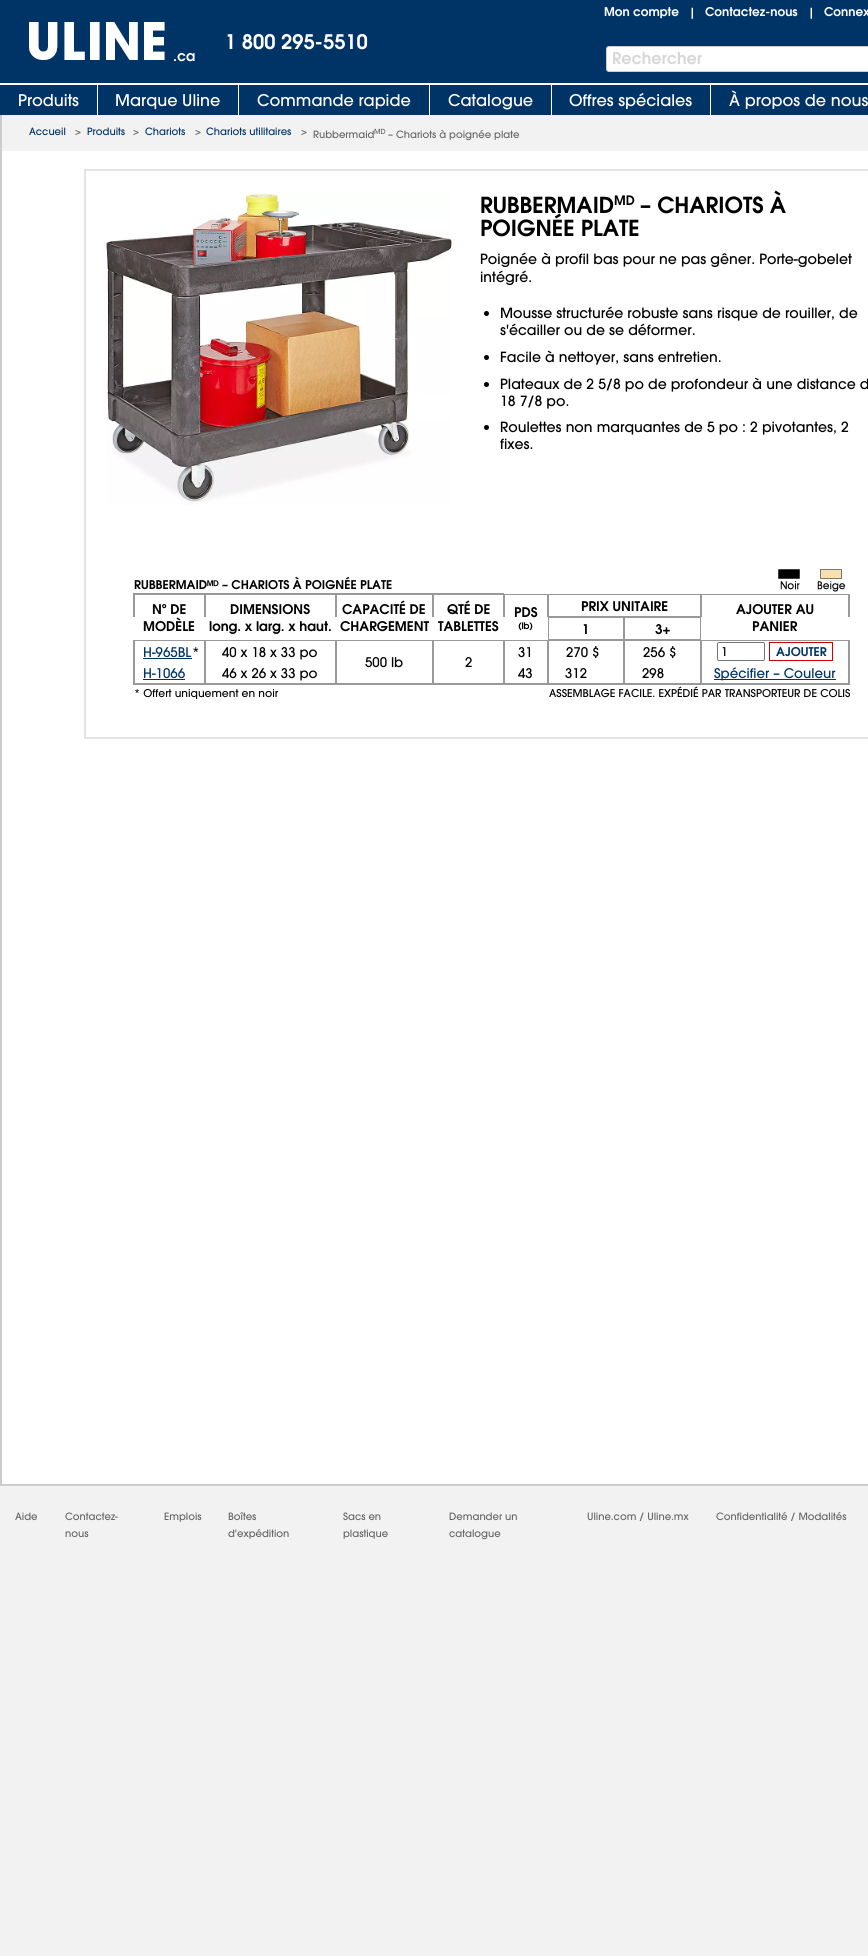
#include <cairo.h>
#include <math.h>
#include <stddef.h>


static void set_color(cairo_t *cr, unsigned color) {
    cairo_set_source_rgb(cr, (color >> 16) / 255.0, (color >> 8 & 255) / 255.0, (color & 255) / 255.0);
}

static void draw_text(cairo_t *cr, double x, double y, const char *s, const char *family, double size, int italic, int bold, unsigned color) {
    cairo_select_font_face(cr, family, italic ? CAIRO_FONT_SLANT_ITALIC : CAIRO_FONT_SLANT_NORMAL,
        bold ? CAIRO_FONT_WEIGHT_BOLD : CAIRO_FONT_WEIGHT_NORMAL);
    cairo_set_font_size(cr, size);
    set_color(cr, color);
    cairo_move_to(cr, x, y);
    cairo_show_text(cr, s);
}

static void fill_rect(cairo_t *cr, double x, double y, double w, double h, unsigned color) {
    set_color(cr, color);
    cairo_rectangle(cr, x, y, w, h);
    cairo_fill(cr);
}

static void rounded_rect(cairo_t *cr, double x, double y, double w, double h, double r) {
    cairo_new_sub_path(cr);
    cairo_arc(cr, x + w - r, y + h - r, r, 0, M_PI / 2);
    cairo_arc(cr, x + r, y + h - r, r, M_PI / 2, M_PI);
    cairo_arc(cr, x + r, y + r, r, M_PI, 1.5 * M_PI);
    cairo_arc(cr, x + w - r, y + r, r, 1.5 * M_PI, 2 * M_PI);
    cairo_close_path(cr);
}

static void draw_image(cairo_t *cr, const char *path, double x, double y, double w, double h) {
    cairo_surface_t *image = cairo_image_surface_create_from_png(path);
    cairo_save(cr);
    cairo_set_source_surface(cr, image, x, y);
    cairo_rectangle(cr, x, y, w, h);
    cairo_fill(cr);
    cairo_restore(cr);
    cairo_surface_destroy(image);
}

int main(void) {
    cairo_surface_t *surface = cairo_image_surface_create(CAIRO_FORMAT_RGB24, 868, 1956);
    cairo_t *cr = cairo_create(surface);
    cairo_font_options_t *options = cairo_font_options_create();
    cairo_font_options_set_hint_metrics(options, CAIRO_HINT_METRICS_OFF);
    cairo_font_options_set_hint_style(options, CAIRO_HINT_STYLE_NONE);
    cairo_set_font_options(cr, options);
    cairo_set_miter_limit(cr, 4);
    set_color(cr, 0xF2F2F2);
    cairo_paint(cr);
    fill_rect(cr, 2, 151, 866, 1333, 0xFFFFFF);
    fill_rect(cr, 0, 0, 868, 115, 0x003366);
    draw_text(cr, 604, 16, "Mon compte", "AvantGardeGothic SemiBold", 12, 0, 0, 0xFFFFFF);
    draw_text(cr, 689, 16, "|", "AvantGardeGothic SemiBold", 11, 0, 0, 0xFFFFFF);
    draw_text(cr, 705, 16, "Contactez-nous", "AvantGardeGothic SemiBold", 12, 0, 0, 0xFFFFFF);
    draw_text(cr, 808, 16, "|", "AvantGardeGothic SemiBold", 11, 0, 0, 0xFFFFFF);
    draw_text(cr, 824, 16, "Connex", "AvantGardeGothic SemiBold", 12, 0, 0, 0xFFFFFF);
    draw_text(cr, 225, 49, "1 800 295-5510", "AvantGardeGothic SemiBold", 20, 0, 0, 0xFFFFFF);
    draw_image(cr, "assets/img1.png", 29, 22, 136, 38);
    draw_text(cr, 173, 61, ".ca", "AvantGardeGothic SemiBold", 14, 0, 0, 0xFFFFFF);
    rounded_rect(cr, 606.5, 46.5, 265, 25, 2.5);
    cairo_fill_preserve(cr);
    set_color(cr, 0xCCCCCC);
    cairo_set_line_width(cr, 1);
    cairo_stroke(cr);
    draw_text(cr, 612, 64, "Rechercher", "AvantGardeGothic SemiBold", 16, 0, 0, 0xD7D7D7);
    fill_rect(cr, 0, 83, 868, 2, 0xFFFFFF);
    fill_rect(cr, 97, 85, 1, 30, 0xFFFFFF);
    draw_text(cr, 18, 106, "Produits", "AvantGardeGothic Medium", 16, 0, 0, 0xFFFFFF);
    fill_rect(cr, 238, 85, 1, 30, 0xFFFFFF);
    draw_text(cr, 115, 106, "Marque Uline", "AvantGardeGothic Medium", 16, 0, 0, 0xFFFFFF);
    fill_rect(cr, 429, 85, 1, 30, 0xFFFFFF);
    draw_text(cr, 257, 106, "Commande rapide", "AvantGardeGothic Medium", 16, 0, 0, 0xFFFFFF);
    fill_rect(cr, 551, 85, 1, 30, 0xFFFFFF);
    draw_text(cr, 448, 106, "Catalogue", "AvantGardeGothic Medium", 16, 0, 0, 0xFFFFFF);
    fill_rect(cr, 710, 85, 1, 30, 0xFFFFFF);
    draw_text(cr, 569, 106, "Offres spéciales", "AvantGardeGothic Medium", 16, 0, 0, 0xFFFFFF);
    draw_text(cr, 729, 106, "À propos de nous", "AvantGardeGothic Medium", 16, 0, 0, 0xFFFFFF);
    fill_rect(cr, 0, 1484, 868, 2, 0xCCCCCC);
    fill_rect(cr, 0, 115, 2, 1371, 0xCCCCCC);
    draw_text(cr, 29, 135, "Accueil", "AvantGardeGothic Medium", 10, 0, 0, 0x003366);
    draw_text(cr, 75, 135, ">", "AvantGardeGothic Medium", 10, 0, 0, 0x666666);
    draw_text(cr, 87, 135, "Produits", "AvantGardeGothic Medium", 10, 0, 0, 0x003366);
    draw_text(cr, 133, 135, ">", "AvantGardeGothic Medium", 10, 0, 0, 0x666666);
    draw_text(cr, 145, 135, "Chariots", "AvantGardeGothic Medium", 10, 0, 0, 0x003366);
    draw_text(cr, 195, 135, ">", "AvantGardeGothic Medium", 10, 0, 0, 0x666666);
    draw_text(cr, 206, 135, "Chariots utilitaires", "AvantGardeGothic Medium", 10, 0, 0, 0x003366);
    draw_text(cr, 301, 135, ">", "AvantGardeGothic Medium", 10, 0, 0, 0x666666);
    draw_text(cr, 313, 138, "Rubbermaid", "AvantGardeGothic Medium", 10, 0, 0, 0x666666);
    draw_text(cr, 374, 134, "MD", "AvantGardeGothic Medium", 7, 0, 0, 0x666666);
    draw_text(cr, 388, 138, "– Chariots à poignée plate", "AvantGardeGothic Medium", 10, 0, 0, 0x666666);
    cairo_rectangle(cr, 85, 170, 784, 568);
    set_color(cr, 0xE5E4E4);
    cairo_set_line_width(cr, 2);
    cairo_stroke(cr);
    draw_image(cr, "assets/img2.png", 106, 192, 346, 313);
    draw_text(cr, 480, 213, "RUBBERMAID", "AvantGardeGothic SemiBold", 22, 0, 0, 0x000000);
    draw_text(cr, 614, 205, "MD", "AvantGardeGothic SemiBold", 13, 0, 0, 0x000000);
    draw_text(cr, 640, 213, "– CHARIOTS À", "AvantGardeGothic SemiBold", 22, 0, 0, 0x000000);
    draw_text(cr, 480, 236, "POIGNÉE PLATE", "AvantGardeGothic SemiBold", 22, 0, 0, 0x000000);
    draw_text(cr, 480, 264, "Poignée à profil bas pour ne pas gêner. Porte-gobelet", "AvantGardeGothic Medium", 14, 0, 0, 0x000000);
    draw_text(cr, 480, 282, "intégré.", "AvantGardeGothic Medium", 14, 0, 0, 0x000000);
    cairo_new_path(cr);
    cairo_arc(cr, 486.5, 313.5, 2.5, 0, 2 * M_PI);
    cairo_fill(cr);
    draw_text(cr, 500, 318, "Mousse structurée robuste sans risque de rouiller, de", "AvantGardeGothic Medium", 14, 0, 0, 0x000000);
    draw_text(cr, 500, 335, "s'écailler ou de se déformer.", "AvantGardeGothic Medium", 14, 0, 0, 0x000000);
    cairo_new_path(cr);
    cairo_arc(cr, 486.5, 357.5, 2.5, 0, 2 * M_PI);
    cairo_fill(cr);
    draw_text(cr, 500, 362, "Facile à nettoyer, sans entretien.", "AvantGardeGothic Medium", 14, 0, 0, 0x000000);
    cairo_new_path(cr);
    cairo_arc(cr, 486.5, 384.5, 2.5, 0, 2 * M_PI);
    cairo_fill(cr);
    draw_text(cr, 500, 389, "Plateaux de 2 5/8 po de profondeur à une distance d", "AvantGardeGothic Medium", 14, 0, 0, 0x000000);
    draw_text(cr, 500, 406, "18 7/8 po.", "AvantGardeGothic Medium", 14, 0, 0, 0x000000);
    cairo_new_path(cr);
    cairo_arc(cr, 486.5, 427.5, 2.5, 0, 2 * M_PI);
    cairo_fill(cr);
    draw_text(cr, 500, 432, "Roulettes non marquantes de 5 po : 2 pivotantes, 2", "AvantGardeGothic Medium", 14, 0, 0, 0x000000);
    draw_text(cr, 500, 449, "fixes.", "AvantGardeGothic Medium", 14, 0, 0, 0x000000);
    fill_rect(cr, 133, 593, 371, 1, 0x999999);
    draw_text(cr, 134, 589, "RUBBERMAID", "AvantGardeGothic SemiBold", 12, 0, 0, 0x000000);
    draw_text(cr, 207, 589, "ᴹᴰ", "Liberation Sans", 12, 0, 1, 0x000000);
    draw_text(cr, 222, 589, "– CHARIOTS À POIGNÉE PLATE", "AvantGardeGothic SemiBold", 12, 0, 0, 0x000000);
    draw_image(cr, "assets/img3.png", 778, 569, 67, 23);
    fill_rect(cr, 133, 594, 72, 1, 0x999999);
    fill_rect(cr, 204, 594, 1, 23, 0x999999);
    fill_rect(cr, 133, 594, 2, 23, 0x999999);
    draw_text(cr, 152, 614, "Nº DE", "AvantGardeGothic SemiBold", 13.25, 0, 0, 0x000000);
    draw_text(cr, 143, 631, "MODÈLE", "AvantGardeGothic SemiBold", 13.25, 0, 0, 0x000000);
    cairo_rectangle(cr, 205.5, 594.5, 130, 45);
    set_color(cr, 0x999999);
    cairo_set_line_width(cr, 1);
    cairo_stroke(cr);
    draw_text(cr, 230, 614, "DIMENSIONS", "AvantGardeGothic SemiBold", 13.25, 0, 0, 0x000000);
    cairo_rectangle(cr, 336.5, 594.5, 96, 45);
    set_color(cr, 0x999999);
    cairo_stroke(cr);
    cairo_rectangle(cr, 433.5, 594.5, 70, 45);
    cairo_stroke(cr);
    cairo_rectangle(cr, 504.5, 594.5, 43, 45);
    cairo_stroke(cr);
    fill_rect(cr, 205, 617, 343, 23, 0xFFFFFF);
    draw_text(cr, 209, 631, "long. x larg. x haut.", "AvantGardeGothic SemiBold", 13.25, 0, 0, 0x000000);
    draw_text(cr, 342, 614, "CAPACITÉ DE", "AvantGardeGothic SemiBold", 13.25, 0, 0, 0x000000);
    draw_text(cr, 340, 631, "CHARGEMENT", "AvantGardeGothic SemiBold", 13.25, 0, 0, 0x000000);
    draw_text(cr, 447, 614, "QTÉ DE", "AvantGardeGothic SemiBold", 13.25, 0, 0, 0x000000);
    draw_text(cr, 438, 631, "TABLETTES", "AvantGardeGothic SemiBold", 13.25, 0, 0, 0x000000);
    draw_text(cr, 514, 617, "PDS", "AvantGardeGothic SemiBold", 13.25, 0, 0, 0x000000);
    draw_text(cr, 518, 629, "(lb)", "AvantGardeGothic SemiBold", 9, 0, 0, 0x000000);
    cairo_rectangle(cr, 548.5, 594.5, 152, 22);
    set_color(cr, 0x999999);
    cairo_stroke(cr);
    draw_text(cr, 581, 611, "PRIX UNITAIRE", "AvantGardeGothic SemiBold", 13.25, 0, 0, 0x000000);
    fill_rect(cr, 701, 594, 149, 1, 0x999999);
    fill_rect(cr, 848, 594, 2, 23, 0x999999);
    fill_rect(cr, 701, 594, 1, 23, 0x999999);
    draw_text(cr, 736, 614, "AJOUTER AU", "AvantGardeGothic SemiBold", 13.25, 0, 0, 0x000000);
    draw_text(cr, 752, 631, "PANIER", "AvantGardeGothic SemiBold", 13.25, 0, 0, 0x000000);
    cairo_rectangle(cr, 548.5, 617.5, 75, 22);
    set_color(cr, 0x999999);
    cairo_stroke(cr);
    draw_text(cr, 582, 634, "1", "AvantGardeGothic SemiBold", 13.25, 0, 0, 0x000000);
    cairo_rectangle(cr, 624.5, 617.5, 76, 22);
    set_color(cr, 0x999999);
    cairo_stroke(cr);
    draw_text(cr, 655, 634, "3+", "AvantGardeGothic SemiBold", 13.25, 0, 0, 0x000000);
    fill_rect(cr, 133, 640, 203, 1, 0x999999);
    fill_rect(cr, 204, 640, 2, 22, 0x999999);
    fill_rect(cr, 133, 640, 2, 22, 0x999999);
    draw_text(cr, 143, 657, "H-965BL", "AvantGardeGothic Medium", 13.25, 0, 0, 0x003366);
    fill_rect(cr, 143, 658, 49, 1, 0x003366);
    draw_text(cr, 192, 657, "*", "AvantGardeGothic Medium", 13.25, 0, 0, 0x000000);
    fill_rect(cr, 335, 640, 1, 44, 0x999999);
    draw_text(cr, 222, 657, "40 x 18 x 33 po", "AvantGardeGothic Medium", 13.25, 0, 0, 0x000000);
    fill_rect(cr, 504, 640, 346, 1, 0x999999);
    fill_rect(cr, 547, 640, 2, 22, 0x999999);
    fill_rect(cr, 504, 640, 1, 22, 0x999999);
    draw_text(cr, 518, 657, "31", "AvantGardeGothic Medium", 13.25, 0, 0, 0x000000);
    fill_rect(cr, 623, 640, 2, 22, 0x999999);
    draw_text(cr, 566, 657, "270 $", "AvantGardeGothic Medium", 13.25, 0, 0, 0x000000);
    fill_rect(cr, 700, 640, 2, 22, 0x999999);
    draw_text(cr, 643, 657, "256 $", "AvantGardeGothic Medium", 13.25, 0, 0, 0x000000);
    fill_rect(cr, 848, 640, 2, 44, 0x999999);
    rounded_rect(cr, 717.5, 642.5, 47, 18, 1.5);
    set_color(cr, 0x767676);
    cairo_stroke(cr);
    draw_text(cr, 721, 656, "1", "AvantGardeGothic Medium", 12, 0, 0, 0x000000);
    cairo_rectangle(cr, 769.5, 642.5, 63, 18);
    set_color(cr, 0xCC0000);
    cairo_stroke(cr);
    draw_text(cr, 776, 656, "AJOUTER", "AvantGardeGothic SemiBold", 12, 0, 0, 0x003366);
    cairo_rectangle(cr, 336.5, 640.5, 96, 43);
    set_color(cr, 0x999999);
    cairo_stroke(cr);
    draw_text(cr, 365, 667, "500 lb", "AvantGardeGothic Medium", 13.25, 0, 0, 0x000000);
    cairo_rectangle(cr, 433.5, 640.5, 70, 43);
    set_color(cr, 0x999999);
    cairo_stroke(cr);
    draw_text(cr, 465, 667, "2", "AvantGardeGothic Medium", 13.25, 0, 0, 0x000000);
    fill_rect(cr, 204, 662, 1, 22, 0x999999);
    fill_rect(cr, 133, 683, 203, 1, 0x999999);
    fill_rect(cr, 133, 662, 2, 22, 0x999999);
    draw_text(cr, 143, 678, "H-1066", "AvantGardeGothic Medium", 13.25, 0, 0, 0x003366);
    fill_rect(cr, 143, 679, 42, 1, 0x003366);
    fill_rect(cr, 205, 662, 1, 22, 0x999999);
    draw_text(cr, 222, 678, "46 x 26 x 33 po", "AvantGardeGothic Medium", 13.25, 0, 0, 0x000000);
    fill_rect(cr, 547, 662, 1, 22, 0x999999);
    fill_rect(cr, 504, 683, 44, 1, 0x999999);
    fill_rect(cr, 504, 662, 1, 22, 0x999999);
    draw_text(cr, 518, 678, "43", "AvantGardeGothic Medium", 13.25, 0, 0, 0x000000);
    fill_rect(cr, 623, 662, 1, 22, 0x999999);
    fill_rect(cr, 548, 683, 76, 1, 0x999999);
    fill_rect(cr, 548, 662, 1, 22, 0x999999);
    draw_text(cr, 565, 678, "312", "AvantGardeGothic Medium", 13.25, 0, 0, 0x000000);
    fill_rect(cr, 700, 662, 1, 22, 0x999999);
    fill_rect(cr, 624, 683, 226, 1, 0x999999);
    fill_rect(cr, 624, 662, 1, 22, 0x999999);
    draw_text(cr, 642, 678, "298", "AvantGardeGothic Medium", 13.25, 0, 0, 0x000000);
    fill_rect(cr, 701, 662, 1, 22, 0x999999);
    fill_rect(cr, 714, 679, 122, 1, 0x003366);
    draw_text(cr, 714, 678, "Spécifier – Couleur", "AvantGardeGothic Medium", 13.25, 0, 0, 0x003366);
    fill_rect(cr, 133, 684, 717, 1, 0x999999);
    draw_text(cr, 134, 697, "* Offert uniquement en noir", "AvantGardeGothic Medium", 10.7, 0, 0, 0x000000);
    draw_text(cr, 549, 697, "ASSEMBLAGE FACILE. EXPÉDIÉ PAR TRANSPORTEUR DE COLIS", "AvantGardeGothic Medium", 10.7, 0, 0, 0x000000);
    draw_text(cr, 15, 1520, "Aide", "AvantGardeGothic Medium", 10, 0, 0, 0x666666);
    draw_text(cr, 65, 1520, "Contactez-", "AvantGardeGothic Medium", 10, 0, 0, 0x666666);
    draw_text(cr, 65, 1537, "nous", "AvantGardeGothic Medium", 10, 0, 0, 0x666666);
    draw_text(cr, 164, 1520, "Emplois", "AvantGardeGothic Medium", 10, 0, 0, 0x666666);
    draw_text(cr, 228, 1520, "Boîtes", "AvantGardeGothic Medium", 10, 0, 0, 0x666666);
    draw_text(cr, 228, 1537, "d'expédition", "AvantGardeGothic Medium", 10, 0, 0, 0x666666);
    draw_text(cr, 343, 1520, "Sacs en", "AvantGardeGothic Medium", 10, 0, 0, 0x666666);
    draw_text(cr, 343, 1537, "plastique", "AvantGardeGothic Medium", 10, 0, 0, 0x666666);
    draw_text(cr, 449, 1520, "Demander un", "AvantGardeGothic Medium", 10, 0, 0, 0x666666);
    draw_text(cr, 449, 1537, "catalogue", "AvantGardeGothic Medium", 10, 0, 0, 0x666666);
    draw_text(cr, 587, 1520, "Uline.com / Uline.mx", "AvantGardeGothic Medium", 10, 0, 0, 0x666666);
    draw_text(cr, 716, 1520, "Confidentialité / Modalités", "AvantGardeGothic Medium", 10, 0, 0, 0x666666);
    cairo_surface_write_to_png(surface, "output.png");
    cairo_font_options_destroy(options);
    cairo_destroy(cr);
    cairo_surface_destroy(surface);
    return 0;
}
